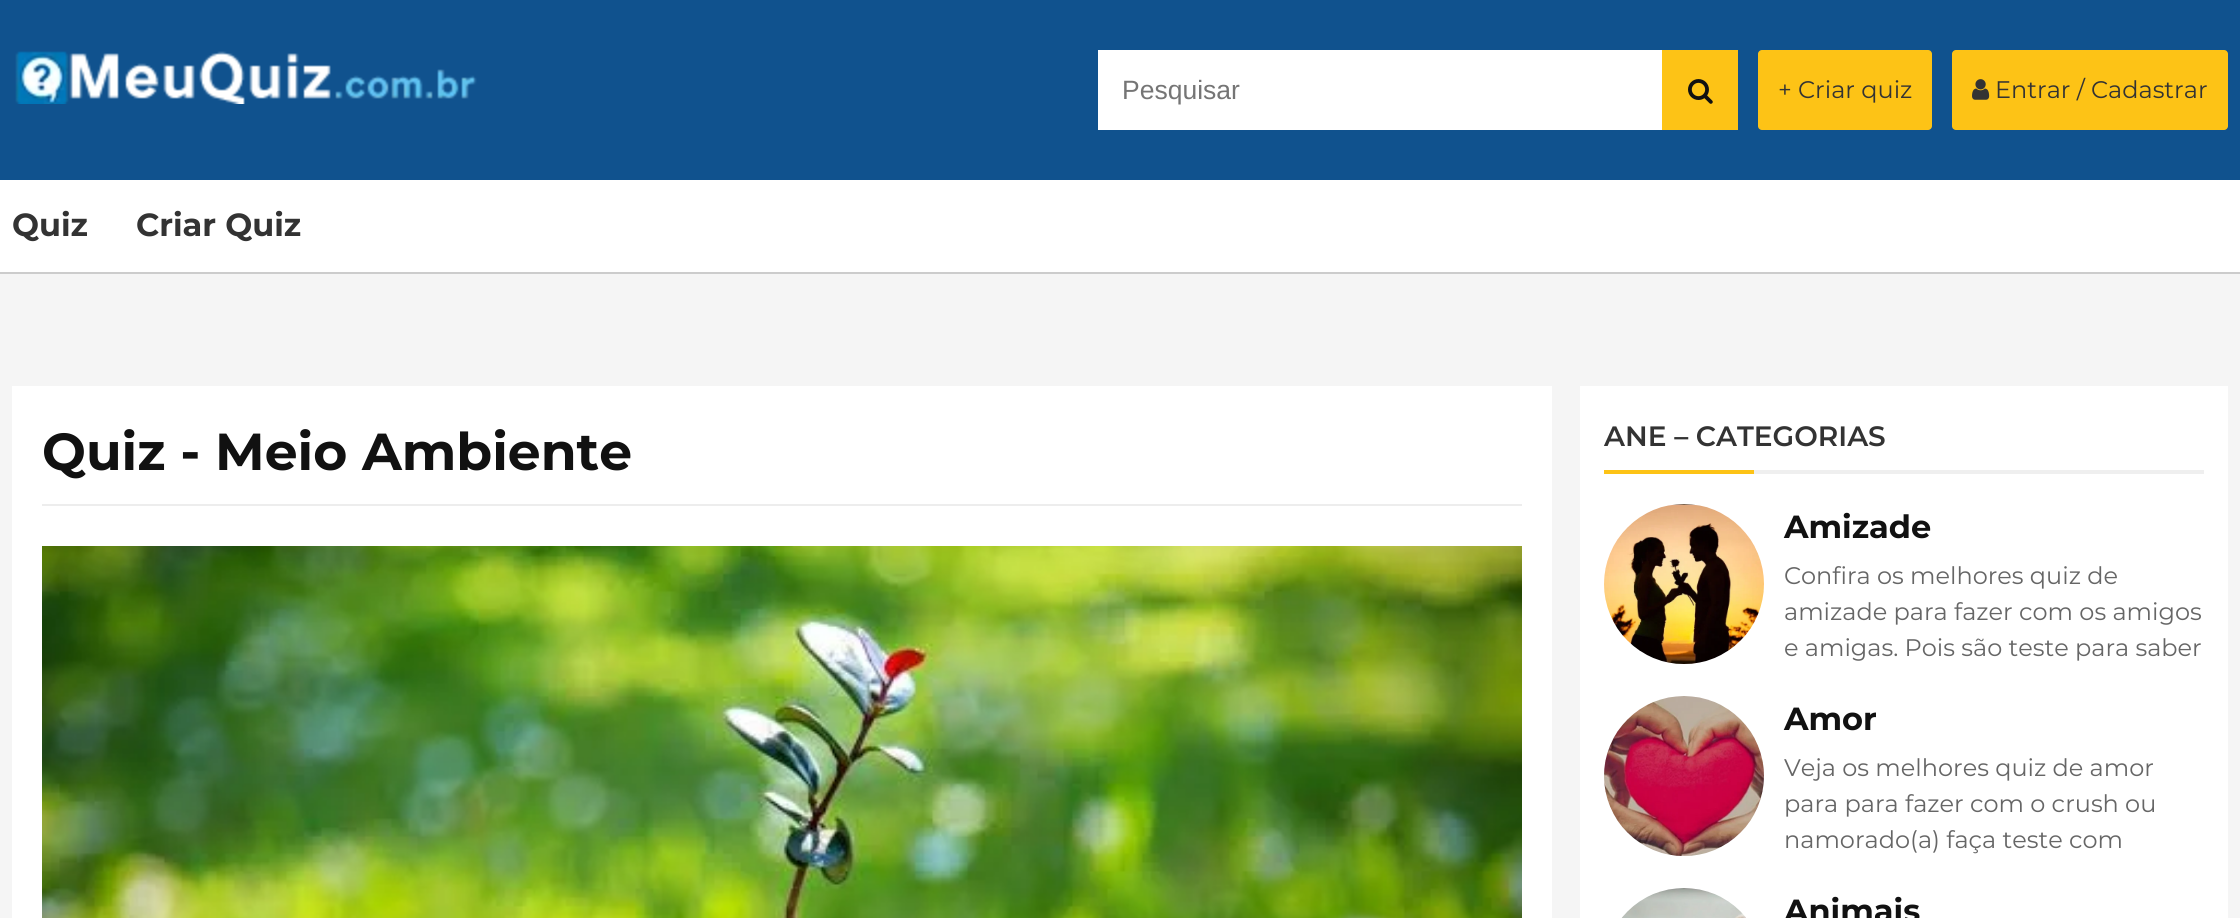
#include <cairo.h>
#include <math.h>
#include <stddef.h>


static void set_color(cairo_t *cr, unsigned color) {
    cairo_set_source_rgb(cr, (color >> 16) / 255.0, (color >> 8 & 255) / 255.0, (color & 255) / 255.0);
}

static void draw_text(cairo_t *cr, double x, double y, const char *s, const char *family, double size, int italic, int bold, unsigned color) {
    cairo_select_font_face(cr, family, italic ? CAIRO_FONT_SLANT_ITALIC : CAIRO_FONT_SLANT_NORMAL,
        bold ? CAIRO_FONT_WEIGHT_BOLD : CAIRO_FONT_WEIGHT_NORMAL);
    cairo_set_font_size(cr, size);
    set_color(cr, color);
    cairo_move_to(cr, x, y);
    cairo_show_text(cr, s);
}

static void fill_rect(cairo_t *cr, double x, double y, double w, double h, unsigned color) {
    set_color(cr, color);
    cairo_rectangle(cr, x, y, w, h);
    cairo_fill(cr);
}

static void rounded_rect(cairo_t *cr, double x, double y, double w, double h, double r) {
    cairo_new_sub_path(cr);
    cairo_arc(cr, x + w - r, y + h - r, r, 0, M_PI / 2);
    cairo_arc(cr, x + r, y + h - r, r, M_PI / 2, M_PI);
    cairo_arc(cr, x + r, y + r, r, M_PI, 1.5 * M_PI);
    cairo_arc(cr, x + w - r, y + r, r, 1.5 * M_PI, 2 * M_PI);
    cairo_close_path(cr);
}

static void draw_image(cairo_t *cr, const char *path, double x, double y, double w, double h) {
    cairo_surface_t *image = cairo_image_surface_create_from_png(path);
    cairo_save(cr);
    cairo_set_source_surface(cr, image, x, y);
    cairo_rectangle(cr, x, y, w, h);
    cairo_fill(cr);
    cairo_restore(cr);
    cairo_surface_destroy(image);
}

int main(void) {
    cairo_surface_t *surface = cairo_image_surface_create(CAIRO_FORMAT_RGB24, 2240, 918);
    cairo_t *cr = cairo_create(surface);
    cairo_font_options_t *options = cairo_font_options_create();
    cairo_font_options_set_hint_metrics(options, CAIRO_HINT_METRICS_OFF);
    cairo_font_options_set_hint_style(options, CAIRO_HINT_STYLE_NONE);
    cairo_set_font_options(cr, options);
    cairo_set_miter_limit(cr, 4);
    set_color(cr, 0xF5F5F5);
    cairo_paint(cr);
    fill_rect(cr, 0, 0, 2240, 180, 0x10528E);
    draw_image(cr, "assets/img1.png", 15, 51, 462, 53);
    fill_rect(cr, 1098, 50, 564, 80, 0xFFFFFF);
    draw_text(cr, 1122, 99, "Pesquisar", "Liberation Sans", 26.5, 0, 0, 0x757575);
    fill_rect(cr, 1662, 50, 76, 80, 0xFDC316);
    draw_image(cr, "assets/img2.png", 1688, 79, 25, 25);
    rounded_rect(cr, 1758, 50, 174, 80, 4);
    cairo_fill(cr);
    draw_text(cr, 1778, 98, "+ Criar quiz", "Montserrat", 24, 0, 0, 0x333333);
    set_color(cr, 0xFDC316);
    rounded_rect(cr, 1952, 50, 276, 80, 4);
    cairo_fill(cr);
    draw_image(cr, "assets/img3.png", 1972, 79, 18, 21);
    draw_text(cr, 1995, 98, "Entrar / Cadastrar", "Montserrat", 24, 0, 0, 0x333333);
    fill_rect(cr, 0, 180, 2240, 92, 0xFFFFFF);
    fill_rect(cr, 0, 272, 2240, 2, 0xCCCCCC);
    draw_text(cr, 12, 236, "Quiz", "Montserrat", 32, 0, 1, 0x333333);
    draw_text(cr, 136, 236, "Criar Quiz", "Montserrat", 32, 0, 1, 0x333333);
    fill_rect(cr, 12, 386, 1540, 532, 0xFFFFFF);
    fill_rect(cr, 42, 504, 1480, 2, 0xEDEDED);
    draw_text(cr, 42, 470, "Quiz - Meio Ambiente", "Montserrat", 52, 0, 1, 0x111111);
    draw_image(cr, "assets/img4.png", 42, 546, 1480, 372);
    fill_rect(cr, 1580, 386, 648, 532, 0xFFFFFF);
    fill_rect(cr, 1754, 470, 450, 4, 0xEFEFEF);
    draw_text(cr, 1604, 446, "ANE – CATEGORIAS", "Montserrat SemiBold", 28, 0, 0, 0x333333);
    fill_rect(cr, 1604, 470, 150, 4, 0xFDC316);
    draw_image(cr, "assets/img5.png", 1604, 504, 160, 160);
    draw_text(cr, 1784, 538, "Amizade", "Montserrat", 32, 0, 1, 0x111111);
    draw_text(cr, 1784, 584, "Confira os melhores quiz de", "Montserrat", 24, 0, 0, 0x666666);
    draw_text(cr, 1784, 620, "amizade para fazer com os amigos", "Montserrat", 24, 0, 0, 0x666666);
    draw_text(cr, 1784, 656, "e amigas. Pois são teste para saber", "Montserrat", 24, 0, 0, 0x666666);
    draw_image(cr, "assets/img6.png", 1604, 696, 160, 160);
    draw_text(cr, 1784, 730, "Amor", "Montserrat", 32, 0, 1, 0x111111);
    draw_text(cr, 1784, 776, "Veja os melhores quiz de amor", "Montserrat", 24, 0, 0, 0x666666);
    draw_text(cr, 1784, 812, "para para fazer com o crush ou", "Montserrat", 24, 0, 0, 0x666666);
    draw_text(cr, 1784, 848, "namorado(a) faça teste com", "Montserrat", 24, 0, 0, 0x666666);
    draw_image(cr, "assets/img7.png", 1621, 888, 125, 30);
    draw_text(cr, 1784, 922, "Animais", "Montserrat", 32, 0, 1, 0x111111);
    cairo_surface_write_to_png(surface, "output.png");
    cairo_font_options_destroy(options);
    cairo_destroy(cr);
    cairo_surface_destroy(surface);
    return 0;
}
